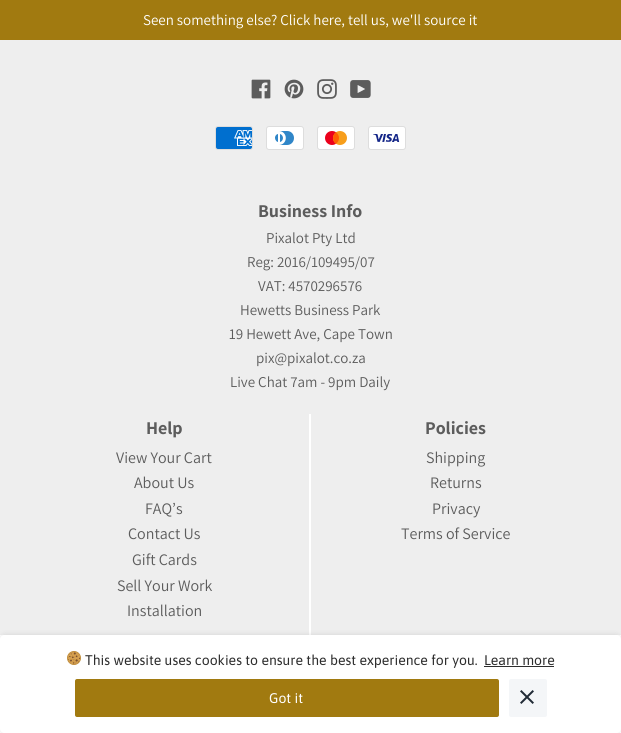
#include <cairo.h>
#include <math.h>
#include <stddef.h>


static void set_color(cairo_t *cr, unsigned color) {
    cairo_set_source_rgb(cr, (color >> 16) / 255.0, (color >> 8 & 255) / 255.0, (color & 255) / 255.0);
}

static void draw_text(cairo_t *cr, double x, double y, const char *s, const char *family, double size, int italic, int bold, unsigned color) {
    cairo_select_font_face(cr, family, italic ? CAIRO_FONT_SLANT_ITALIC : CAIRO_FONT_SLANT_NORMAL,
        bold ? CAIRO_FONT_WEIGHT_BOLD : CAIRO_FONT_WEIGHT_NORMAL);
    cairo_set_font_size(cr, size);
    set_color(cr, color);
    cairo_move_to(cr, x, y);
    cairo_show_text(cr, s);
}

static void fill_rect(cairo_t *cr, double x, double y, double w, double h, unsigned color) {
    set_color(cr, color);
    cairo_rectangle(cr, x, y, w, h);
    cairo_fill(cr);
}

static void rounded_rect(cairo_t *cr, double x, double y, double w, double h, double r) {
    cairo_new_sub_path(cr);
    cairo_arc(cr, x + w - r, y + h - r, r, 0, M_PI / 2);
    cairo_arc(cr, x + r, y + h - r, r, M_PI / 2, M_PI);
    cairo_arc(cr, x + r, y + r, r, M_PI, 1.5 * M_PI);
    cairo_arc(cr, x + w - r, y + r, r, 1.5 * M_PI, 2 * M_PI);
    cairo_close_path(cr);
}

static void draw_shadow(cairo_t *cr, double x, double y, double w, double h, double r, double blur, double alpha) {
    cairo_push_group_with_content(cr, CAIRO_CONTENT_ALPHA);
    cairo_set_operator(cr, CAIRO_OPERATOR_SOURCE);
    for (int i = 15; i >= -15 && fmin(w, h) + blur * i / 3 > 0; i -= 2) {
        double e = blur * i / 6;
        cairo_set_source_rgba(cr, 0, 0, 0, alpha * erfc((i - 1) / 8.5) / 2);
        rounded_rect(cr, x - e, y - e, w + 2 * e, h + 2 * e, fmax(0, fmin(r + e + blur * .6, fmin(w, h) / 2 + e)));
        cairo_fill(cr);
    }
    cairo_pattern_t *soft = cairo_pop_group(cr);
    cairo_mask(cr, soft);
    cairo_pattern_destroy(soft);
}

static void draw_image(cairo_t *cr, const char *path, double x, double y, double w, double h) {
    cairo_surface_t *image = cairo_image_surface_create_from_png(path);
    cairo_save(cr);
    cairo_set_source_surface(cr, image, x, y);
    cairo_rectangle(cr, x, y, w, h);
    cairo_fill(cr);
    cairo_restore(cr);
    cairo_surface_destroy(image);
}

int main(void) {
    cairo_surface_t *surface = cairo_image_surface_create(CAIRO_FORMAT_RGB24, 621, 733);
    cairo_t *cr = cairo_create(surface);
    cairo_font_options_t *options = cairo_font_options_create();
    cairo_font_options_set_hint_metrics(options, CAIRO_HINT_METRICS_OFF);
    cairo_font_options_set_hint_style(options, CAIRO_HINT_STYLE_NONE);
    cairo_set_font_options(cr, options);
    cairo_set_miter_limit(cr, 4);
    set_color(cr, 0xEEEEEE);
    cairo_paint(cr);
    fill_rect(cr, 0, 0, 621, 40, 0xA17A10);
    draw_text(cr, 143, 25, "Seen something else? Click here, tell us, we'll source it", "Assistant", 15, 0, 0, 0xFFFFFF);
    draw_image(cr, "assets/img1.png", 251, 79, 20, 20);
    draw_image(cr, "assets/img2.png", 284, 79, 20, 20);
    draw_image(cr, "assets/img3.png", 317, 79, 20, 20);
    draw_image(cr, "assets/img4.png", 350, 80, 21, 18);
    draw_image(cr, "assets/img5.png", 215, 126, 38, 24);
    draw_image(cr, "assets/img6.png", 266, 126, 38, 24);
    draw_image(cr, "assets/img7.png", 317, 126, 38, 24);
    draw_image(cr, "assets/img8.png", 368, 126, 38, 24);
    draw_text(cr, 258, 217, "Business Info", "Assistant", 18, 0, 1, 0x5C5C5C);
    draw_text(cr, 266, 243, "Pixalot Pty Ltd", "Assistant", 15, 0, 0, 0x5C5C5C);
    draw_text(cr, 247, 267, "Reg: 2016/109495/07", "Assistant", 15, 0, 0, 0x5C5C5C);
    draw_text(cr, 258, 291, "VAT: 4570296576", "Assistant", 15, 0, 0, 0x5C5C5C);
    draw_text(cr, 240, 315, "Hewetts Business Park", "Assistant", 15, 0, 0, 0x5C5C5C);
    draw_text(cr, 229, 339, "19 Hewett Ave, Cape Town", "Assistant", 15, 0, 0, 0x5C5C5C);
    draw_text(cr, 256, 363, "pix@pixalot.co.za", "Assistant", 15, 0, 0, 0x5C5C5C);
    draw_text(cr, 230, 387, "Live Chat 7am - 9pm Daily", "Assistant", 15, 0, 0, 0x5C5C5C);
    fill_rect(cr, 309, 414, 2, 221, 0xFFFFFF);
    draw_text(cr, 146, 434, "Help", "Assistant", 18, 0, 1, 0x5C5C5C);
    draw_text(cr, 116, 463, "View Your Cart", "Assistant", 16, 0, 0, 0x5C5C5C);
    draw_text(cr, 134, 488, "About Us", "Assistant", 16, 0, 0, 0x5C5C5C);
    draw_text(cr, 145, 514, "FAQ’s", "Assistant", 16, 0, 0, 0x5C5C5C);
    draw_text(cr, 128, 539, "Contact Us", "Assistant", 16, 0, 0, 0x5C5C5C);
    draw_text(cr, 132, 565, "Gift Cards", "Assistant", 16, 0, 0, 0x5C5C5C);
    draw_text(cr, 117, 591, "Sell Your Work", "Assistant", 16, 0, 0, 0x5C5C5C);
    draw_text(cr, 127, 616, "Installation", "Assistant", 16, 0, 0, 0x5C5C5C);
    draw_text(cr, 425, 434, "Policies", "Assistant", 18, 0, 1, 0x5C5C5C);
    draw_text(cr, 426, 463, "Shipping", "Assistant", 16, 0, 0, 0x5C5C5C);
    draw_text(cr, 430, 488, "Returns", "Assistant", 16, 0, 0, 0x5C5C5C);
    draw_text(cr, 432, 514, "Privacy", "Assistant", 16, 0, 0, 0x5C5C5C);
    draw_text(cr, 401, 539, "Terms of Service", "Assistant", 16, 0, 0, 0x5C5C5C);
    fill_rect(cr, 0, 635, 621, 98, 0xFFFFFF);
    cairo_save(cr);
    cairo_set_fill_rule(cr, CAIRO_FILL_RULE_EVEN_ODD);
    cairo_new_path(cr);
    cairo_move_to(cr, 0, 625);
    cairo_line_to(cr, 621, 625);
    cairo_line_to(cr, 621, 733);
    cairo_line_to(cr, 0, 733);
    cairo_close_path(cr);
    cairo_move_to(cr, 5, 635);
    cairo_line_to(cr, 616, 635);
    cairo_curve_to(cr, 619, 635, 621, 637, 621, 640);
    cairo_line_to(cr, 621, 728);
    cairo_curve_to(cr, 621, 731, 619, 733, 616, 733);
    cairo_line_to(cr, 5, 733);
    cairo_curve_to(cr, 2, 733, 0, 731, 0, 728);
    cairo_line_to(cr, 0, 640);
    cairo_curve_to(cr, 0, 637, 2, 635, 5, 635);
    cairo_close_path(cr);
    cairo_clip(cr);
    set_color(cr, 0x000000);
    draw_shadow(cr, 0, 635, 621, 98, 5, 3, 0.12);
    cairo_restore(cr);
    draw_image(cr, "assets/img9.png", 67, 651, 14, 14);
    draw_text(cr, 85, 665, "This website uses cookies to ensure the best experience for you.", "Asap", 14, 0, 0, 0x2D2D2D);
    draw_text(cr, 484, 665, "Learn more", "Asap", 14, 0, 0, 0x2D2D2D);
    fill_rect(cr, 484, 666, 70, 1, 0x2D2D2D);
    set_color(cr, 0xA17A10);
    rounded_rect(cr, 75, 679, 424, 38, 2);
    cairo_fill(cr);
    draw_text(cr, 269, 703, "Got it", "Asap", 14, 0, 0, 0xFFFFFF);
    set_color(cr, 0xF4F6F8);
    rounded_rect(cr, 509, 679, 38, 38, 2);
    cairo_fill(cr);
    draw_image(cr, "assets/img10.png", 520, 690, 14, 14);
    cairo_surface_write_to_png(surface, "output.png");
    cairo_font_options_destroy(options);
    cairo_destroy(cr);
    cairo_surface_destroy(surface);
    return 0;
}
